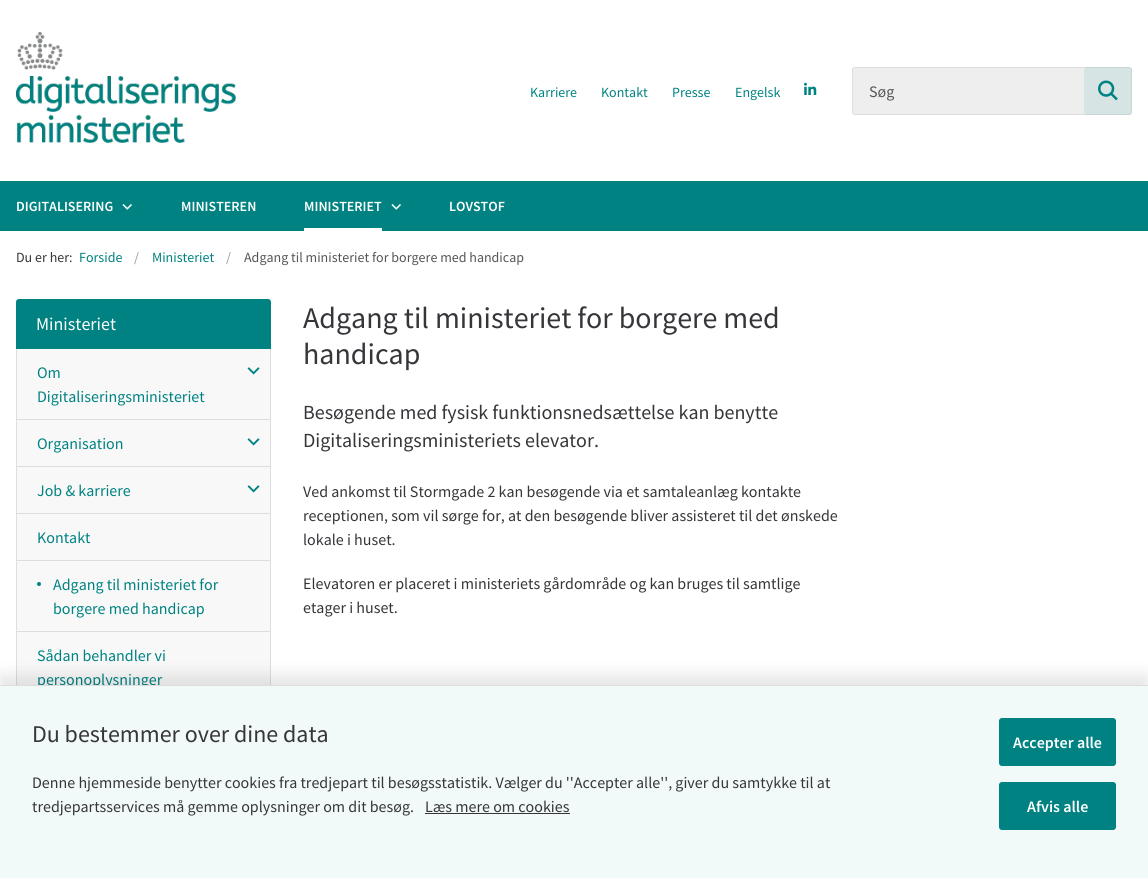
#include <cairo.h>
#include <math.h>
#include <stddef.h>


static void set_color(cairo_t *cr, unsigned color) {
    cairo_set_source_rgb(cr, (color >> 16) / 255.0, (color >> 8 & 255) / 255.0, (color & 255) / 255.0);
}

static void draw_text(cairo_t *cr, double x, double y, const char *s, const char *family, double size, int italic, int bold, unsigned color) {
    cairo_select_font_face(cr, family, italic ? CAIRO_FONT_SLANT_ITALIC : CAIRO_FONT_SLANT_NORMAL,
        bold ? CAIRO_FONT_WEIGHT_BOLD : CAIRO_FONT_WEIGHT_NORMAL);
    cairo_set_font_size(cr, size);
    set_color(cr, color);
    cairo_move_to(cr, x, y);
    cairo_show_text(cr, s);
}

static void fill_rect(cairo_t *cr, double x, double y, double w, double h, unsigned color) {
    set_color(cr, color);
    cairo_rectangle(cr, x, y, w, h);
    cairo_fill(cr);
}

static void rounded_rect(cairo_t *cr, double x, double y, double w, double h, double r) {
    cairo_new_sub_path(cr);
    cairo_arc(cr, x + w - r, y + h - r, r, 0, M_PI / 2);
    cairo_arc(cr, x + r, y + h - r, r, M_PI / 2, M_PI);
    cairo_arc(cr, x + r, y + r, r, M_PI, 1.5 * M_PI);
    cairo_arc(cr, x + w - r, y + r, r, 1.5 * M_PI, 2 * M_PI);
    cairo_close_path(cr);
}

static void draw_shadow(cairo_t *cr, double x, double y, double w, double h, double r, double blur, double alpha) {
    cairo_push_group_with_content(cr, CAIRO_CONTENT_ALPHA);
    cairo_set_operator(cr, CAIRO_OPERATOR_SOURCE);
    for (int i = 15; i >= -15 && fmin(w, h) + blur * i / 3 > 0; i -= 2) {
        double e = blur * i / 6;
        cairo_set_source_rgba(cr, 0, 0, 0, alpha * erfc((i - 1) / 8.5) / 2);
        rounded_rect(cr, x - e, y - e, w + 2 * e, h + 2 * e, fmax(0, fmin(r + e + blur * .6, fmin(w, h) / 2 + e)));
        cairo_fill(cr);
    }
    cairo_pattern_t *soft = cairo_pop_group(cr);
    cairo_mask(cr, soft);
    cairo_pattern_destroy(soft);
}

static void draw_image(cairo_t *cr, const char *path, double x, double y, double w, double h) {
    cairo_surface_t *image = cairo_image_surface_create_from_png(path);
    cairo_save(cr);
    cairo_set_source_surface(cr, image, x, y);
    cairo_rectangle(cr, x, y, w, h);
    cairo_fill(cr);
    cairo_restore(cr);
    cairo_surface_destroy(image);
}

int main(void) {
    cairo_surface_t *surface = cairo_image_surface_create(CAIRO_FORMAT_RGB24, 1148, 878);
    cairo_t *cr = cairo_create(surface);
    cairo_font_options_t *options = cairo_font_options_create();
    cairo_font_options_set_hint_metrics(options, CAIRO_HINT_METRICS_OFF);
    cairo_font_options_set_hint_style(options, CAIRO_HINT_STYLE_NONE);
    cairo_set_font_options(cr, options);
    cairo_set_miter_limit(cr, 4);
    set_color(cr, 0xFFFFFF);
    cairo_paint(cr);
    draw_image(cr, "assets/img1.png", 16, 32, 220, 111);
    draw_text(cr, 530, 97, "Karriere", "Source Sans Pro", 14, 0, 0, 0x008282);
    draw_text(cr, 601, 97, "Kontakt", "Source Sans Pro", 14, 0, 0, 0x008282);
    draw_text(cr, 672, 97, "Presse", "Source Sans Pro", 14, 0, 0, 0x008282);
    draw_text(cr, 735, 97, "Engelsk", "Source Sans Pro", 14, 0, 0, 0x008282);
    draw_image(cr, "assets/img2.png", 804, 82, 13, 13);
    set_color(cr, 0xEEEEEE);
    rounded_rect(cr, 852.5, 67.5, 279, 47, 2.5);
    cairo_fill_preserve(cr);
    set_color(cr, 0xDDDDDD);
    cairo_set_line_width(cr, 1);
    cairo_stroke(cr);
    draw_text(cr, 869, 97, "Søg", "Source Sans Pro", 16, 0, 0, 0x555555);
    cairo_set_source_rgba(cr, 0, 0.51, 0.51, 0.1);
    rounded_rect(cr, 1084, 67, 48, 48, 3);
    cairo_fill(cr);
    draw_image(cr, "assets/img3.png", 1098, 80, 20, 21);
    fill_rect(cr, 0, 181, 1148, 50, 0x008282);
    draw_text(cr, 16, 211, "DIGITALISERING", "Source Sans Pro SemiBold", 14, 0, 0, 0xFFFFFF);
    draw_image(cr, "assets/img4.png", 122, 204, 10, 6);
    draw_text(cr, 181, 211, "MINISTEREN", "Source Sans Pro SemiBold", 14, 0, 0, 0xFFFFFF);
    fill_rect(cr, 304, 228, 78, 3, 0xFFFFFF);
    draw_text(cr, 304, 211, "MINISTERIET", "Source Sans Pro SemiBold", 14, 0, 0, 0xFFFFFF);
    draw_image(cr, "assets/img4.png", 391, 204, 10, 6);
    draw_text(cr, 449, 211, "LOVSTOF", "Source Sans Pro SemiBold", 14, 0, 0, 0xFFFFFF);
    draw_text(cr, 16, 262, "Du er her:", "Source Sans Pro", 14, 0, 0, 0x36363A);
    draw_text(cr, 79, 262, "Forside", "Source Sans Pro", 14, 0, 0, 0x008282);
    draw_text(cr, 134, 262, "/", "Source Sans Pro", 14, 0, 0, 0x999999);
    draw_text(cr, 152, 262, "Ministeriet", "Source Sans Pro", 14, 0, 0, 0x008282);
    draw_text(cr, 226, 262, "/", "Source Sans Pro", 14, 0, 0, 0x999999);
    draw_text(cr, 244, 262, "Adgang til ministeriet for borgere med handicap", "Source Sans Pro", 14, 0, 0, 0x555555);
    set_color(cr, 0xF8F8F8);
    rounded_rect(cr, 16.5, 299.5, 254, 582, 2.5);
    cairo_fill_preserve(cr);
    set_color(cr, 0xDDDDDD);
    cairo_stroke(cr);
    set_color(cr, 0x008282);
    cairo_new_path(cr);
    cairo_move_to(cr, 19, 299);
    cairo_line_to(cr, 268, 299);
    cairo_curve_to(cr, 269.5, 299, 271, 300.5, 271, 302);
    cairo_line_to(cr, 271, 349);
    cairo_line_to(cr, 16, 349);
    cairo_line_to(cr, 16, 302);
    cairo_curve_to(cr, 16, 300.5, 17.5, 299, 19, 299);
    cairo_close_path(cr);
    cairo_fill(cr);
    draw_text(cr, 36, 330, "Ministeriet", "Source Sans Pro", 18, 0, 0, 0xFFFFFF);
    fill_rect(cr, 17, 419, 253, 1, 0xDDDDDD);
    draw_text(cr, 37, 378, "Om", "Source Sans Pro", 16, 0, 0, 0x008282);
    draw_text(cr, 37, 402, "Digitaliseringsministeriet", "Source Sans Pro", 16, 0, 0, 0x008282);
    draw_image(cr, "assets/img5.png", 247, 367, 13, 8);
    fill_rect(cr, 17, 466, 253, 1, 0xDDDDDD);
    draw_text(cr, 37, 449, "Organisation", "Source Sans Pro", 16, 0, 0, 0x008282);
    draw_image(cr, "assets/img5.png", 247, 438, 13, 8);
    fill_rect(cr, 17, 513, 253, 1, 0xDDDDDD);
    draw_text(cr, 37, 496, "Job & karriere", "Source Sans Pro", 16, 0, 0, 0x008282);
    draw_image(cr, "assets/img5.png", 247, 485, 13, 8);
    fill_rect(cr, 17, 560, 253, 1, 0xDDDDDD);
    draw_text(cr, 37, 543, "Kontakt", "Source Sans Pro", 16, 0, 0, 0x008282);
    fill_rect(cr, 17, 631, 253, 1, 0xDDDDDD);
    set_color(cr, 0x008282);
    cairo_new_path(cr);
    cairo_arc(cr, 39, 584, 2, 0, 2 * M_PI);
    cairo_fill(cr);
    draw_text(cr, 53, 590, "Adgang til ministeriet for", "Source Sans Pro", 16, 0, 0, 0x008282);
    draw_text(cr, 53, 614, "borgere med handicap", "Source Sans Pro", 16, 0, 0, 0x008282);
    draw_text(cr, 37, 661, "Sådan behandler vi", "Source Sans Pro", 16, 0, 0, 0x008282);
    draw_text(cr, 37, 685, "personoplysninger", "Source Sans Pro", 16, 0, 0, 0x008282);
    draw_text(cr, 303, 328, "Adgang til ministeriet for borgere med", "Source Sans Pro", 30, 0, 0, 0x36363A);
    draw_text(cr, 303, 364, "handicap", "Source Sans Pro", 30, 0, 0, 0x36363A);
    draw_text(cr, 303, 419, "Besøgende med fysisk funktionsnedsættelse kan benytte", "Source Sans Pro", 20, 0, 0, 0x36363A);
    draw_text(cr, 303, 447, "Digitaliseringsministeriets elevator.", "Source Sans Pro", 20, 0, 0, 0x36363A);
    draw_text(cr, 303, 497, "Ved ankomst til Stormgade 2 kan besøgende via et samtaleanlæg kontakte", "Source Sans Pro", 16, 0, 0, 0x36363A);
    draw_text(cr, 303, 521, "receptionen, som vil sørge for, at den besøgende bliver assisteret til det ønskede", "Source Sans Pro", 16, 0, 0, 0x36363A);
    draw_text(cr, 303, 545, "lokale i huset.", "Source Sans Pro", 16, 0, 0, 0x36363A);
    draw_text(cr, 303, 589, "Elevatoren er placeret i ministeriets gårdområde og kan bruges til samtlige", "Source Sans Pro", 16, 0, 0, 0x36363A);
    draw_text(cr, 303, 613, "etager i huset.", "Source Sans Pro", 16, 0, 0, 0x36363A);
    set_color(cr, 0x000000);
    draw_shadow(cr, 0, 675, 1148, 193, 0, 7.5, 0.1);
    fill_rect(cr, 0, 686, 1148, 192, 0xF2F9F9);
    fill_rect(cr, 0, 685, 1148, 1, 0xDDDDDD);
    draw_text(cr, 32, 742, "Du bestemmer over dine data", "Source Sans Pro", 24, 0, 0, 0x36363A);
    draw_text(cr, 32, 788, "Denne hjemmeside benytter cookies fra tredjepart til besøgsstatistik. Vælger du ''Accepter alle'', giver du samtykke til at", "Source Sans Pro", 16, 0, 0, 0x36363A);
    draw_text(cr, 32, 812, "tredjepartsservices må gemme oplysninger om dit besøg.", "Source Sans Pro", 16, 0, 0, 0x36363A);
    draw_text(cr, 425, 812, "Læs mere om cookies", "Source Sans Pro", 16, 0, 0, 0x36363A);
    fill_rect(cr, 425, 813, 145, 1, 0x36363A);
    set_color(cr, 0x008282);
    rounded_rect(cr, 999, 718, 117, 48, 3);
    cairo_fill(cr);
    draw_text(cr, 1013, 748, "Accepter alle", "Source Sans Pro SemiBold", 16, 0, 0, 0xFFFFFF);
    set_color(cr, 0x008282);
    rounded_rect(cr, 999, 782, 117, 48, 3);
    cairo_fill(cr);
    draw_text(cr, 1027, 812, "Afvis alle", "Source Sans Pro SemiBold", 16, 0, 0, 0xFFFFFF);
    cairo_surface_write_to_png(surface, "output.png");
    cairo_font_options_destroy(options);
    cairo_destroy(cr);
    cairo_surface_destroy(surface);
    return 0;
}
